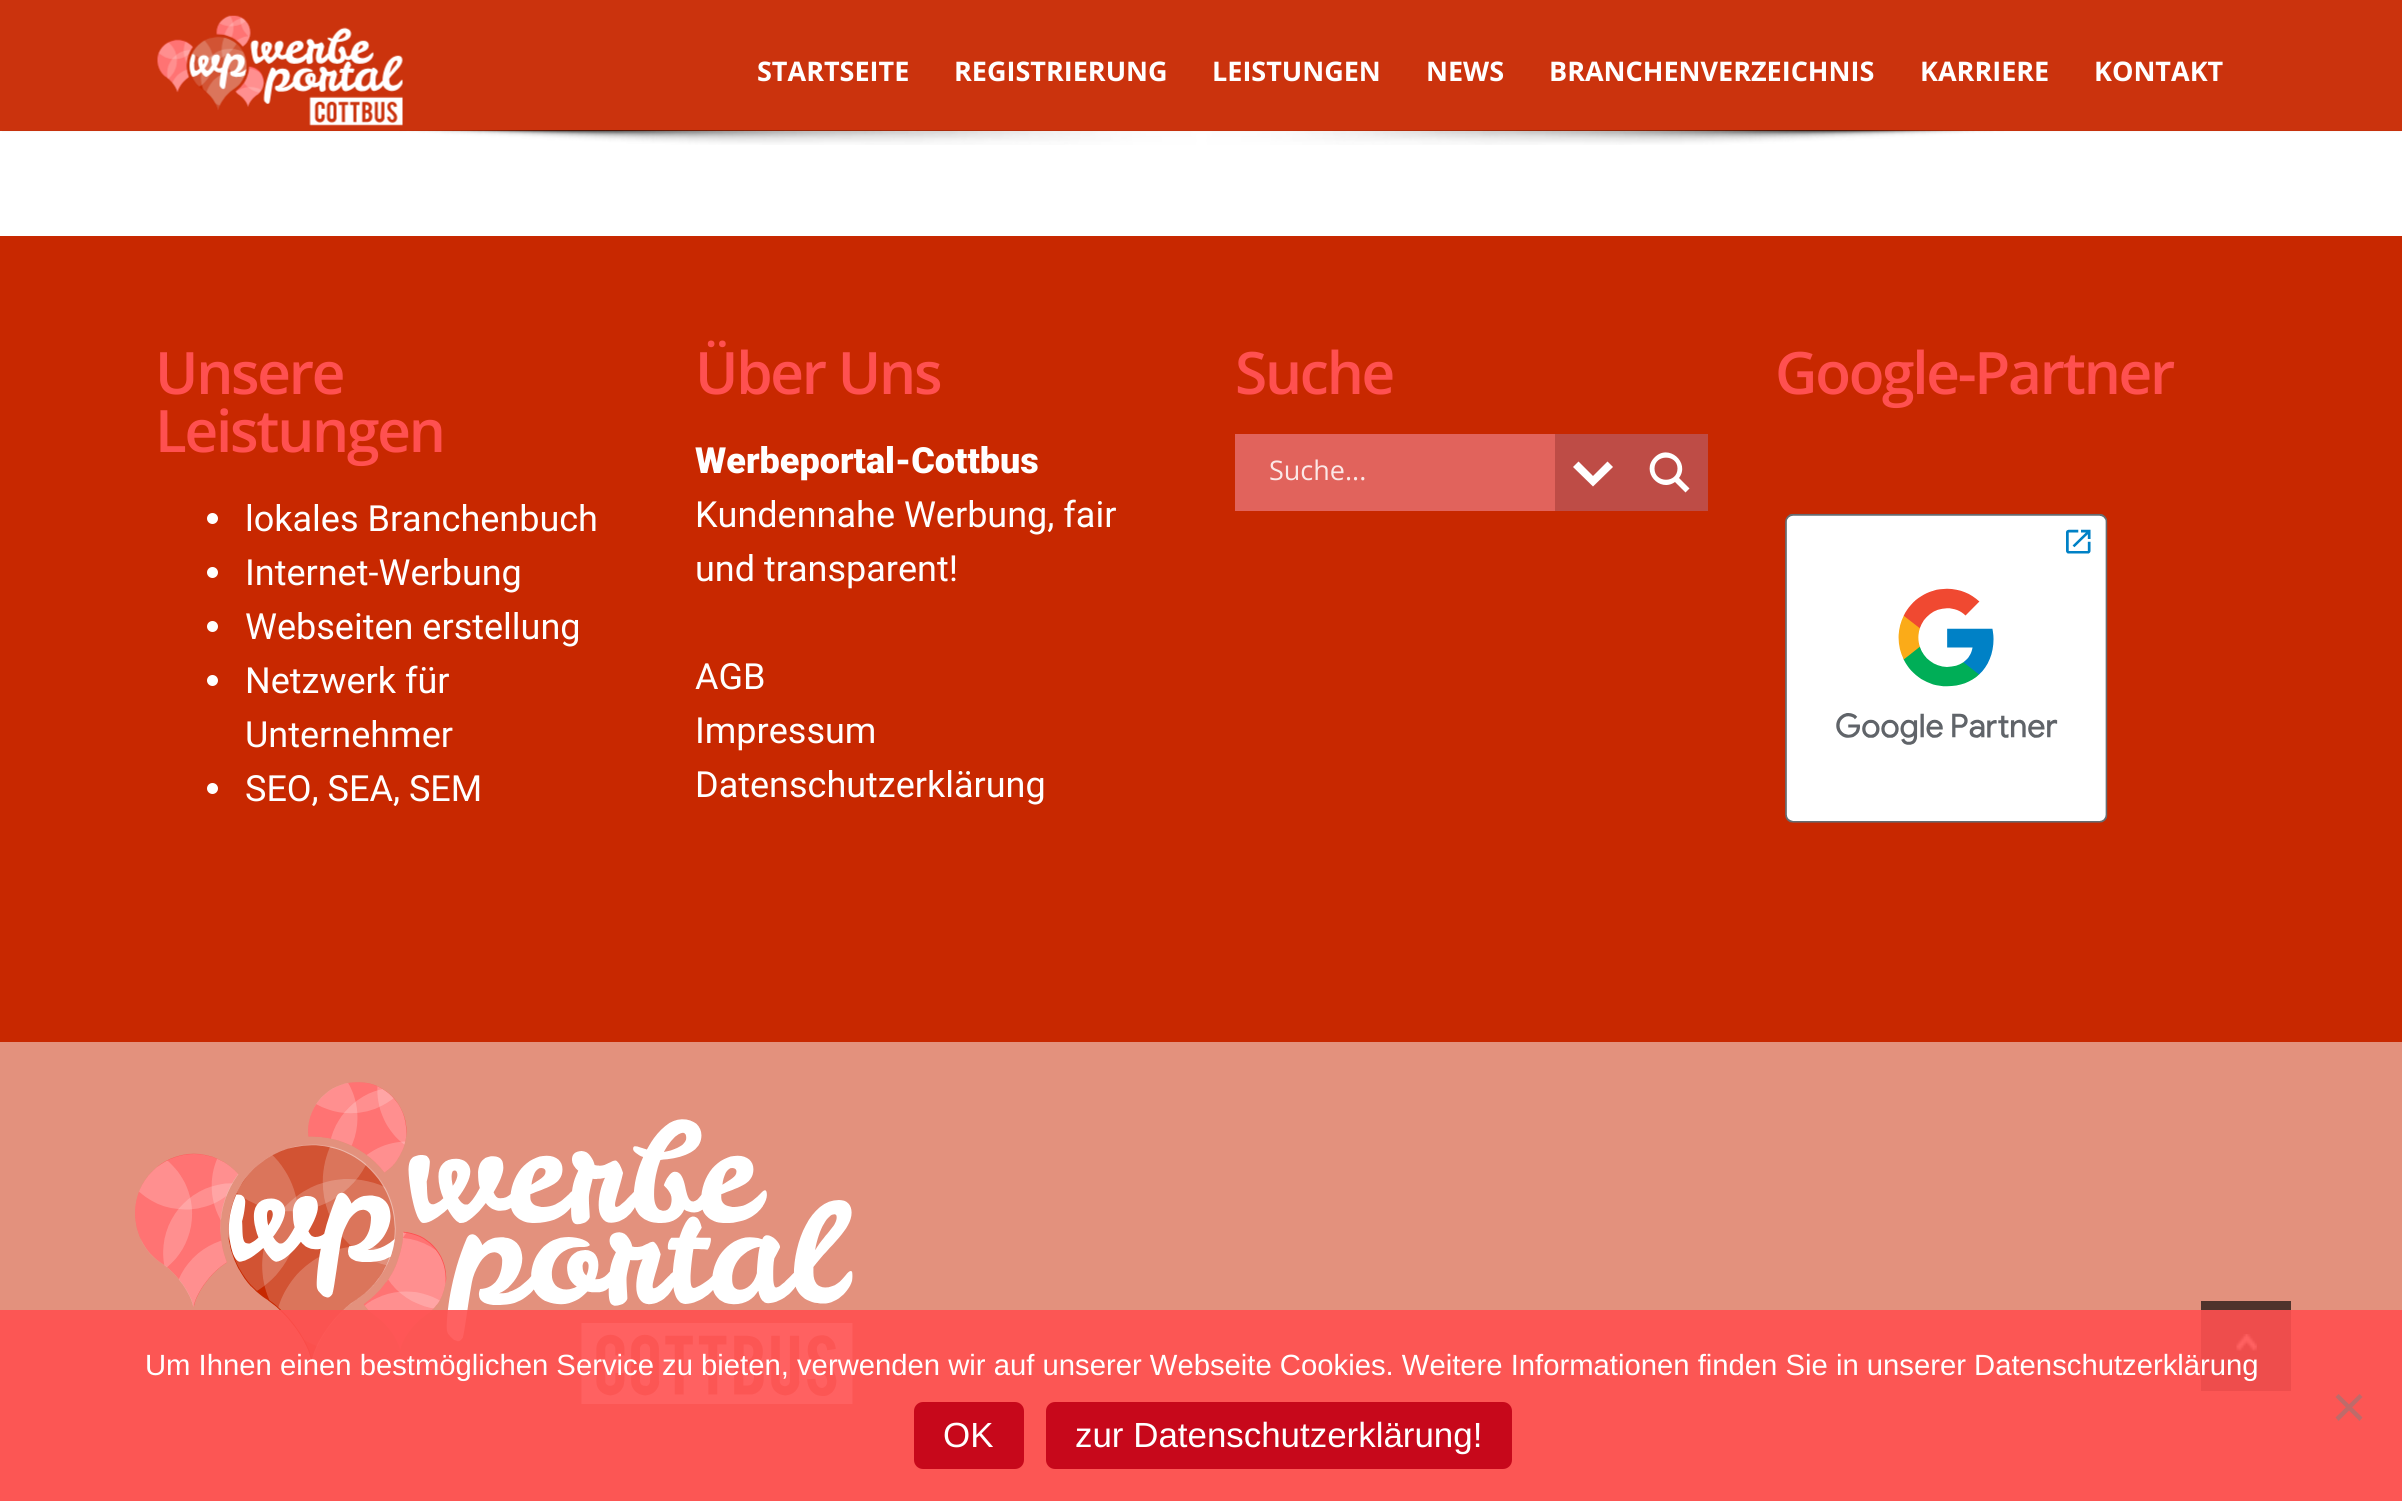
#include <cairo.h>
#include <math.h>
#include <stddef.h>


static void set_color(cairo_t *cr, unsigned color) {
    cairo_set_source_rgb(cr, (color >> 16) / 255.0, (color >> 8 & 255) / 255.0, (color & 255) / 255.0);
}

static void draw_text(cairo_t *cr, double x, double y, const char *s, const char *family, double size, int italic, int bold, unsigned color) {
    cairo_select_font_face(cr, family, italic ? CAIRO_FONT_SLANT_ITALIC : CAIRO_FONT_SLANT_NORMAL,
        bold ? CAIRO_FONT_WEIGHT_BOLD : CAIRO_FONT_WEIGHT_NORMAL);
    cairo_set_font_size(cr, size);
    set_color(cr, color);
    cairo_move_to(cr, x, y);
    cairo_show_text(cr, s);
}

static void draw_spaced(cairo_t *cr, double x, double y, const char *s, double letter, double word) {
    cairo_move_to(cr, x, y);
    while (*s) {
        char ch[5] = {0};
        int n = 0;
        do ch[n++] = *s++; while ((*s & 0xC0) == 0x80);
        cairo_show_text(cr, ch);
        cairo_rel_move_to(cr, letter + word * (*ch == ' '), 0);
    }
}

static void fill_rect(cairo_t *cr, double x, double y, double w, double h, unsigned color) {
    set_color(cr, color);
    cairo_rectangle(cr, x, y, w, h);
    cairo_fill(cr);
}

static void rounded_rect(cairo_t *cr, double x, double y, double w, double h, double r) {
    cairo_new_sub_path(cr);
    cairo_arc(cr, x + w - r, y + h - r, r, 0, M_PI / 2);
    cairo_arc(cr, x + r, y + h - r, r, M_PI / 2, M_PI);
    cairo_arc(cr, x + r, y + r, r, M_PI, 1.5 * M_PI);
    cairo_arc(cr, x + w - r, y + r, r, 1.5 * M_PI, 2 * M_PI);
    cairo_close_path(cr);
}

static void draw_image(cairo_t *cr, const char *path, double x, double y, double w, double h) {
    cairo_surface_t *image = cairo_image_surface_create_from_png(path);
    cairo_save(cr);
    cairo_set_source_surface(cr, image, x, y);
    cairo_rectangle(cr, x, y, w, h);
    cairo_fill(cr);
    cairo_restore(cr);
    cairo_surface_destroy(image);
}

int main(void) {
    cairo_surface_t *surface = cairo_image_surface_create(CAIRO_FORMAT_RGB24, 2402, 1501);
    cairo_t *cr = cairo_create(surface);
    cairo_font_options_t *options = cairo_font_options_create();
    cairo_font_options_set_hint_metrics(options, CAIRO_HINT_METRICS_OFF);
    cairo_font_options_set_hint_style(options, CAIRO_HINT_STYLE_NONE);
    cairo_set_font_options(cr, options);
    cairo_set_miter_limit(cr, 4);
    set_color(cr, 0xFFFFFF);
    cairo_paint(cr);
    fill_rect(cr, 0, 0, 2402, 131, 0xCB330D);
    draw_image(cr, "assets/img1.png", 157, 15, 246, 111);
    draw_text(cr, 757, 81, "STARTSEITE", "Open Sans", 27, 0, 1, 0xFFFFFF);
    draw_text(cr, 954, 81, "REGISTRIERUNG", "Open Sans", 27, 0, 1, 0xFFFFFF);
    draw_text(cr, 1212, 81, "LEISTUNGEN", "Open Sans", 27, 0, 1, 0xFFFFFF);
    draw_text(cr, 1426, 81, "NEWS", "Open Sans", 27, 0, 1, 0xFFFFFF);
    draw_text(cr, 1549, 81, "BRANCHENVERZEICHNIS", "Open Sans", 27, 0, 1, 0xFFFFFF);
    draw_text(cr, 1920, 81, "KARRIERE", "Open Sans", 27, 0, 1, 0xFFFFFF);
    draw_text(cr, 2094, 81, "KONTAKT", "Open Sans", 27, 0, 1, 0xFFFFFF);
    draw_image(cr, "assets/img2.png", 2, 130, 2399, 15);
    fill_rect(cr, 0, 236, 2402, 806, 0xC82800);
    cairo_select_font_face(cr, "Open Sans SemiBold", CAIRO_FONT_SLANT_NORMAL, CAIRO_FONT_WEIGHT_NORMAL);
    cairo_set_font_size(cr, 58.5);
    set_color(cr, 0xFF5050);
    draw_spaced(cr, 155, 394, "Unsere", -2.25, 0);
    draw_spaced(cr, 155, 452, "Leistungen", -2.25, 0);
    set_color(cr, 0xFFFFFF);
    cairo_new_path(cr);
    cairo_arc(cr, 212.5, 518.5, 5.5, 0, 2 * M_PI);
    cairo_fill(cr);
    draw_text(cr, 245, 531, "lokales Branchenbuch", "Roboto", 36, 0, 0, 0xFFFFFF);
    cairo_new_path(cr);
    cairo_arc(cr, 212.5, 572.5, 5.5, 0, 2 * M_PI);
    cairo_fill(cr);
    draw_text(cr, 245, 585, "Internet-Werbung", "Roboto", 36, 0, 0, 0xFFFFFF);
    cairo_new_path(cr);
    cairo_arc(cr, 212.5, 626.5, 5.5, 0, 2 * M_PI);
    cairo_fill(cr);
    draw_text(cr, 245, 639, "Webseiten erstellung", "Roboto", 36, 0, 0, 0xFFFFFF);
    cairo_new_path(cr);
    cairo_arc(cr, 212.5, 680.5, 5.5, 0, 2 * M_PI);
    cairo_fill(cr);
    draw_text(cr, 245, 693, "Netzwerk für", "Roboto", 36, 0, 0, 0xFFFFFF);
    draw_text(cr, 245, 747, "Unternehmer", "Roboto", 36, 0, 0, 0xFFFFFF);
    cairo_new_path(cr);
    cairo_arc(cr, 212.5, 788.5, 5.5, 0, 2 * M_PI);
    cairo_fill(cr);
    draw_text(cr, 245, 801, "SEO, SEA, SEM", "Roboto", 36, 0, 0, 0xFFFFFF);
    cairo_select_font_face(cr, "Open Sans SemiBold", CAIRO_FONT_SLANT_NORMAL, CAIRO_FONT_WEIGHT_NORMAL);
    cairo_set_font_size(cr, 58.5);
    set_color(cr, 0xFF5050);
    draw_spaced(cr, 695, 394, "Über Uns", -2.25, 0);
    draw_text(cr, 695, 473, "Werbeportal-Cottbus", "Roboto Black", 36, 0, 0, 0xFFFFFF);
    draw_text(cr, 695, 527, "Kundennahe Werbung, fair", "Roboto", 36, 0, 0, 0xFFFFFF);
    draw_text(cr, 695, 581, "und transparent!", "Roboto", 36, 0, 0, 0xFFFFFF);
    draw_text(cr, 695, 689, "AGB", "Roboto", 36, 0, 0, 0xFFFFFF);
    draw_text(cr, 695, 743, "Impressum", "Roboto", 36, 0, 0, 0xFFFFFF);
    draw_text(cr, 695, 797, "Datenschutzerklärung", "Roboto", 36, 0, 0, 0xFFFFFF);
    cairo_select_font_face(cr, "Open Sans SemiBold", CAIRO_FONT_SLANT_NORMAL, CAIRO_FONT_WEIGHT_NORMAL);
    cairo_set_font_size(cr, 58.5);
    set_color(cr, 0xFF5050);
    draw_spaced(cr, 1235, 394, "Suche", -2.25, 0);
    fill_rect(cr, 1235, 434, 320, 77, 0xE1635C);
    fill_rect(cr, 1555, 434, 153, 77, 0xBE4C46);
    set_color(cr, 0xFFFFFF);
    cairo_new_path(cr);
    cairo_move_to(cr, 1607.5, 461.5);
    cairo_line_to(cr, 1613, 467);
    cairo_line_to(cr, 1593, 486.5);
    cairo_line_to(cr, 1573, 467);
    cairo_line_to(cr, 1578.5, 461.5);
    cairo_line_to(cr, 1593, 476);
    cairo_close_path(cr);
    cairo_fill(cr);
    draw_text(cr, 1269, 480, "Suche...", "Open Sans", 27, 0, 0, 0xFBE8E7);
    set_color(cr, 0xFFFFFF);
    cairo_new_path(cr);
    cairo_move_to(cr, 1689.5, 488.5);
    cairo_line_to(cr, 1679, 478);
    cairo_curve_to(cr, 1690.5, 462.5, 1668.5, 443, 1654.5, 457.5);
    cairo_curve_to(cr, 1640.5, 471.5, 1659.5, 493, 1675, 482);
    cairo_line_to(cr, 1685.5, 492.5);
    cairo_close_path(cr);
    cairo_move_to(cr, 1654.5, 468.5);
    cairo_curve_to(cr, 1654.5, 454, 1677.5, 454, 1677.5, 468.5);
    cairo_curve_to(cr, 1677.5, 483.5, 1654.5, 483.5, 1654.5, 468.5);
    cairo_close_path(cr);
    cairo_fill(cr);
    cairo_select_font_face(cr, "Open Sans SemiBold", CAIRO_FONT_SLANT_NORMAL, CAIRO_FONT_WEIGHT_NORMAL);
    cairo_set_font_size(cr, 58.5);
    set_color(cr, 0xFF5050);
    draw_spaced(cr, 1775, 394, "Google-Partner", -2.25, 0);
    draw_image(cr, "assets/img3.png", 1785, 513, 323, 310);
    fill_rect(cr, 0, 1042, 2402, 459, 0xE3917D);
    draw_image(cr, "assets/img4.png", 135, 1082, 718, 322);
    fill_rect(cr, 2201, 1301, 90, 90, 0x4F332C);
    draw_image(cr, "assets/img5.png", 2236, 1334, 21, 17);
    cairo_set_source_rgba(cr, 1, 0.314, 0.314, 0.9);
    cairo_rectangle(cr, 0, 1310, 2402, 191);
    cairo_fill(cr);
    draw_text(cr, 145, 1375, "Um Ihnen einen bestmöglichen Service zu bieten, verwenden wir auf unserer Webseite Cookies. Weitere Informationen finden Sie in unserer Datenschutzerklärung", "Liberation Sans", 29.25, 0, 0, 0xFFFFFF);
    set_color(cr, 0xBE6B6A);
    cairo_new_path(cr);
    cairo_move_to(cr, 2359.5, 1394);
    cairo_line_to(cr, 2362.5, 1397);
    cairo_line_to(cr, 2338.5, 1421);
    cairo_line_to(cr, 2335.5, 1417.5);
    cairo_close_path(cr);
    cairo_fill(cr);
    cairo_new_path(cr);
    cairo_move_to(cr, 2335.5, 1397);
    cairo_line_to(cr, 2338.5, 1394);
    cairo_line_to(cr, 2362.5, 1417.5);
    cairo_line_to(cr, 2359.5, 1421);
    cairo_close_path(cr);
    cairo_fill(cr);
    set_color(cr, 0xC7081B);
    rounded_rect(cr, 914, 1402, 110, 67, 9);
    cairo_fill(cr);
    draw_text(cr, 943, 1447, "OK", "Liberation Sans", 34.9, 0, 0, 0xFFFFFF);
    set_color(cr, 0xC7081B);
    rounded_rect(cr, 1046, 1402, 466, 67, 9);
    cairo_fill(cr);
    draw_text(cr, 1075, 1447, "zur Datenschutzerklärung!", "Liberation Sans", 34.9, 0, 0, 0xFFFFFF);
    cairo_surface_write_to_png(surface, "output.png");
    cairo_font_options_destroy(options);
    cairo_destroy(cr);
    cairo_surface_destroy(surface);
    return 0;
}
